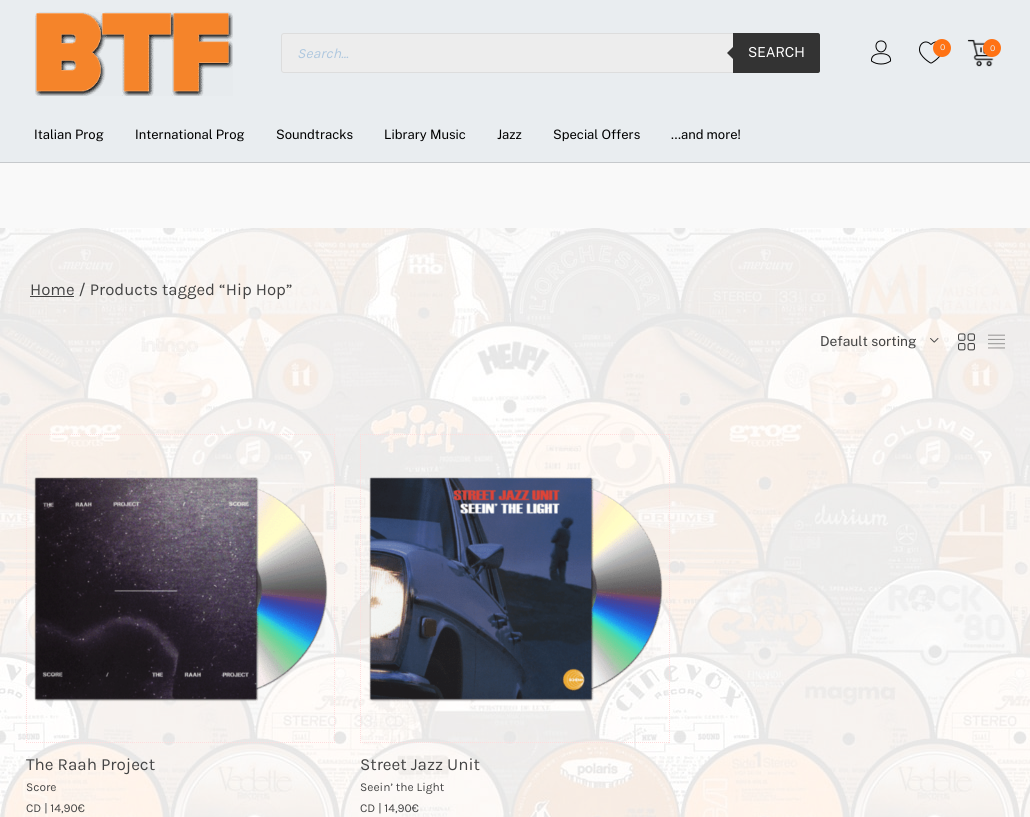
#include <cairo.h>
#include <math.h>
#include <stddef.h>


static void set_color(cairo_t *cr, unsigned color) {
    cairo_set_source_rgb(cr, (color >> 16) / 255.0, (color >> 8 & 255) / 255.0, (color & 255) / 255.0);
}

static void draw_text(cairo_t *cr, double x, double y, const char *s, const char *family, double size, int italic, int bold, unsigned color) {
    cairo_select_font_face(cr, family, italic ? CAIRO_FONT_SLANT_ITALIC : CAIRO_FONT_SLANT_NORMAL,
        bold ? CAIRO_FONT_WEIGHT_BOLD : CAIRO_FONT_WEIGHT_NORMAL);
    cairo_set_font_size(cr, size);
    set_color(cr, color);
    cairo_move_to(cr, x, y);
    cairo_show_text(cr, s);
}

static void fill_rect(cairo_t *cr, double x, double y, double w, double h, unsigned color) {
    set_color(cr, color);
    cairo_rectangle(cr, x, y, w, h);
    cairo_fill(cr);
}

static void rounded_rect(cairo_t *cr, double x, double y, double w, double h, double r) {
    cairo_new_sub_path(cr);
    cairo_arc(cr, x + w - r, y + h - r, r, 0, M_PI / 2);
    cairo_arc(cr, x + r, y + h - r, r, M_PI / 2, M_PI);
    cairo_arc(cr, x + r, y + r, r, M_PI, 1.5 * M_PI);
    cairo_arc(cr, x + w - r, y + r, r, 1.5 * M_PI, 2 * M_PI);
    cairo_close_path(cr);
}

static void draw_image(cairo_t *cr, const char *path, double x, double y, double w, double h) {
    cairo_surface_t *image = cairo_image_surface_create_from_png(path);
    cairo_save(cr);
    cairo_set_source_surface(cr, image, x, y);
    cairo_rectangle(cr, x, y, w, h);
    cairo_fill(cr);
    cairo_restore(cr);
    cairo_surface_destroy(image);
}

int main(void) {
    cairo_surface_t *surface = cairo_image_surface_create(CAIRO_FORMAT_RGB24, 1030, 817);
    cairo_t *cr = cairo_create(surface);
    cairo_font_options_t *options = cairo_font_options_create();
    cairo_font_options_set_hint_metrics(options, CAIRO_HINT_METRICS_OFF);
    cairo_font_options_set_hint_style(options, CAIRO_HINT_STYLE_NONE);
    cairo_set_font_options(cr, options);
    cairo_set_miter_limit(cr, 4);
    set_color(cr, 0xF9F9F9);
    cairo_paint(cr);
    fill_rect(cr, 0, 0, 1030, 162, 0xE9EDF0);
    draw_image(cr, "assets/img1.png", 35, 12, 198, 84);
    set_color(cr, 0xEDEDED);
    rounded_rect(cr, 281.5, 33.5, 538, 39, 2.5);
    cairo_fill_preserve(cr);
    set_color(cr, 0xDDDDDD);
    cairo_set_line_width(cr, 1);
    cairo_stroke(cr);
    draw_text(cr, 297, 58, "Search...", "Karla", 14, 1, 0, 0xAFC8DF);
    set_color(cr, 0x333333);
    cairo_new_path(cr);
    cairo_move_to(cr, 733, 33);
    cairo_line_to(cr, 818, 33);
    cairo_curve_to(cr, 819, 33, 820, 34, 820, 35);
    cairo_line_to(cr, 820, 71);
    cairo_curve_to(cr, 820, 72, 819, 73, 818, 73);
    cairo_line_to(cr, 733, 73);
    cairo_close_path(cr);
    cairo_fill(cr);
    cairo_new_path(cr);
    cairo_move_to(cr, 735, 45);
    cairo_line_to(cr, 735, 61);
    cairo_line_to(cr, 727, 53);
    cairo_close_path(cr);
    cairo_fill(cr);
    draw_text(cr, 748, 57, "SEARCH", "Public Sans", 13.75, 0, 0, 0xFFFFFF);
    draw_image(cr, "assets/img2.png", 871, 40, 21, 25);
    draw_image(cr, "assets/img3.png", 919, 41, 22, 23);
    set_color(cr, 0xFF7214);
    cairo_arc(cr, 942, 48, 9, 0, 2 * M_PI);
    cairo_fill(cr);
    draw_text(cr, 940, 50, "0", "Karla", 9, 0, 0, 0xE9EDF0);
    draw_image(cr, "assets/img4.png", 967, 39, 27, 28);
    set_color(cr, 0xFF7214);
    cairo_arc(cr, 992, 48, 9, 0, 2 * M_PI);
    cairo_fill(cr);
    draw_text(cr, 990, 51, "0", "Karla", 9, 0, 0, 0xE9EDF0);
    draw_text(cr, 34, 139, "Italian Prog", "Public Sans", 13, 0, 0, 0x000000);
    draw_text(cr, 135, 139, "International Prog", "Public Sans", 13, 0, 0, 0x000000);
    draw_text(cr, 276, 139, "Soundtracks", "Public Sans", 13, 0, 0, 0x000000);
    draw_text(cr, 384, 139, "Library Music", "Public Sans", 13, 0, 0, 0x000000);
    draw_text(cr, 497, 139, "Jazz", "Public Sans", 13, 0, 0, 0x000000);
    draw_text(cr, 553, 139, "Special Offers", "Public Sans", 13, 0, 0, 0x000000);
    draw_text(cr, 671, 139, "…and more!", "Public Sans", 13, 0, 0, 0x000000);
    fill_rect(cr, 0, 162, 1030, 1, 0xC6C9CC);
    draw_image(cr, "assets/img5.png", 0, 228, 1030, 589);
    fill_rect(cr, 30, 296, 44, 1, 0x444444);
    draw_text(cr, 30, 295, "Home / Products tagged “Hip Hop”", "Karla", 16.75, 0, 0, 0x444444);
    draw_text(cr, 820, 346, "Default sorting", "Public Sans", 13.75, 0, 0, 0x444444);
    draw_image(cr, "assets/img6.png", 930, 338, 9, 5);
    draw_image(cr, "assets/img7.png", 958, 333, 17, 18);
    draw_image(cr, "assets/img8.png", 988, 334, 17, 15);
    cairo_new_path(cr);
    cairo_move_to(cr, 26, 434.5);
    cairo_line_to(cr, 335, 434.5);
    set_color(cr, 0xFFDDDD);
    cairo_set_dash(cr, (double[]){1, 1}, 2, 0);
    cairo_stroke(cr);
    cairo_new_path(cr);
    cairo_move_to(cr, 334.5, 434);
    cairo_line_to(cr, 334.5, 743);
    cairo_stroke(cr);
    cairo_new_path(cr);
    cairo_move_to(cr, 26, 742.5);
    cairo_line_to(cr, 335, 742.5);
    cairo_stroke(cr);
    cairo_new_path(cr);
    cairo_move_to(cr, 26.5, 434);
    cairo_line_to(cr, 26.5, 743);
    cairo_stroke(cr);
    draw_image(cr, "assets/img9.png", 34, 477, 294, 225);
    draw_text(cr, 26, 770, "The Raah Project", "Karla", 17, 0, 0, 0x444444);
    draw_text(cr, 26, 791, "Score", "Karla", 12, 0, 0, 0x444444);
    draw_text(cr, 26, 812, "CD | 14,90€", "Karla", 12, 0, 0, 0x444444);
    cairo_new_path(cr);
    cairo_move_to(cr, 360, 434.5);
    cairo_line_to(cr, 670, 434.5);
    set_color(cr, 0xFFDDDD);
    cairo_stroke(cr);
    cairo_new_path(cr);
    cairo_move_to(cr, 669.5, 434);
    cairo_line_to(cr, 669.5, 743);
    cairo_stroke(cr);
    cairo_new_path(cr);
    cairo_move_to(cr, 360, 742.5);
    cairo_line_to(cr, 670, 742.5);
    cairo_stroke(cr);
    cairo_new_path(cr);
    cairo_move_to(cr, 360.5, 434);
    cairo_line_to(cr, 360.5, 743);
    cairo_stroke(cr);
    draw_image(cr, "assets/img10.png", 369, 477, 294, 225);
    draw_text(cr, 360, 770, "Street Jazz Unit", "Karla", 17, 0, 0, 0x444444);
    draw_text(cr, 360, 791, "Seein’ the Light", "Karla", 12, 0, 0, 0x444444);
    draw_text(cr, 360, 812, "CD | 14,90€", "Karla", 12, 0, 0, 0x444444);
    cairo_surface_write_to_png(surface, "output.png");
    cairo_font_options_destroy(options);
    cairo_destroy(cr);
    cairo_surface_destroy(surface);
    return 0;
}
